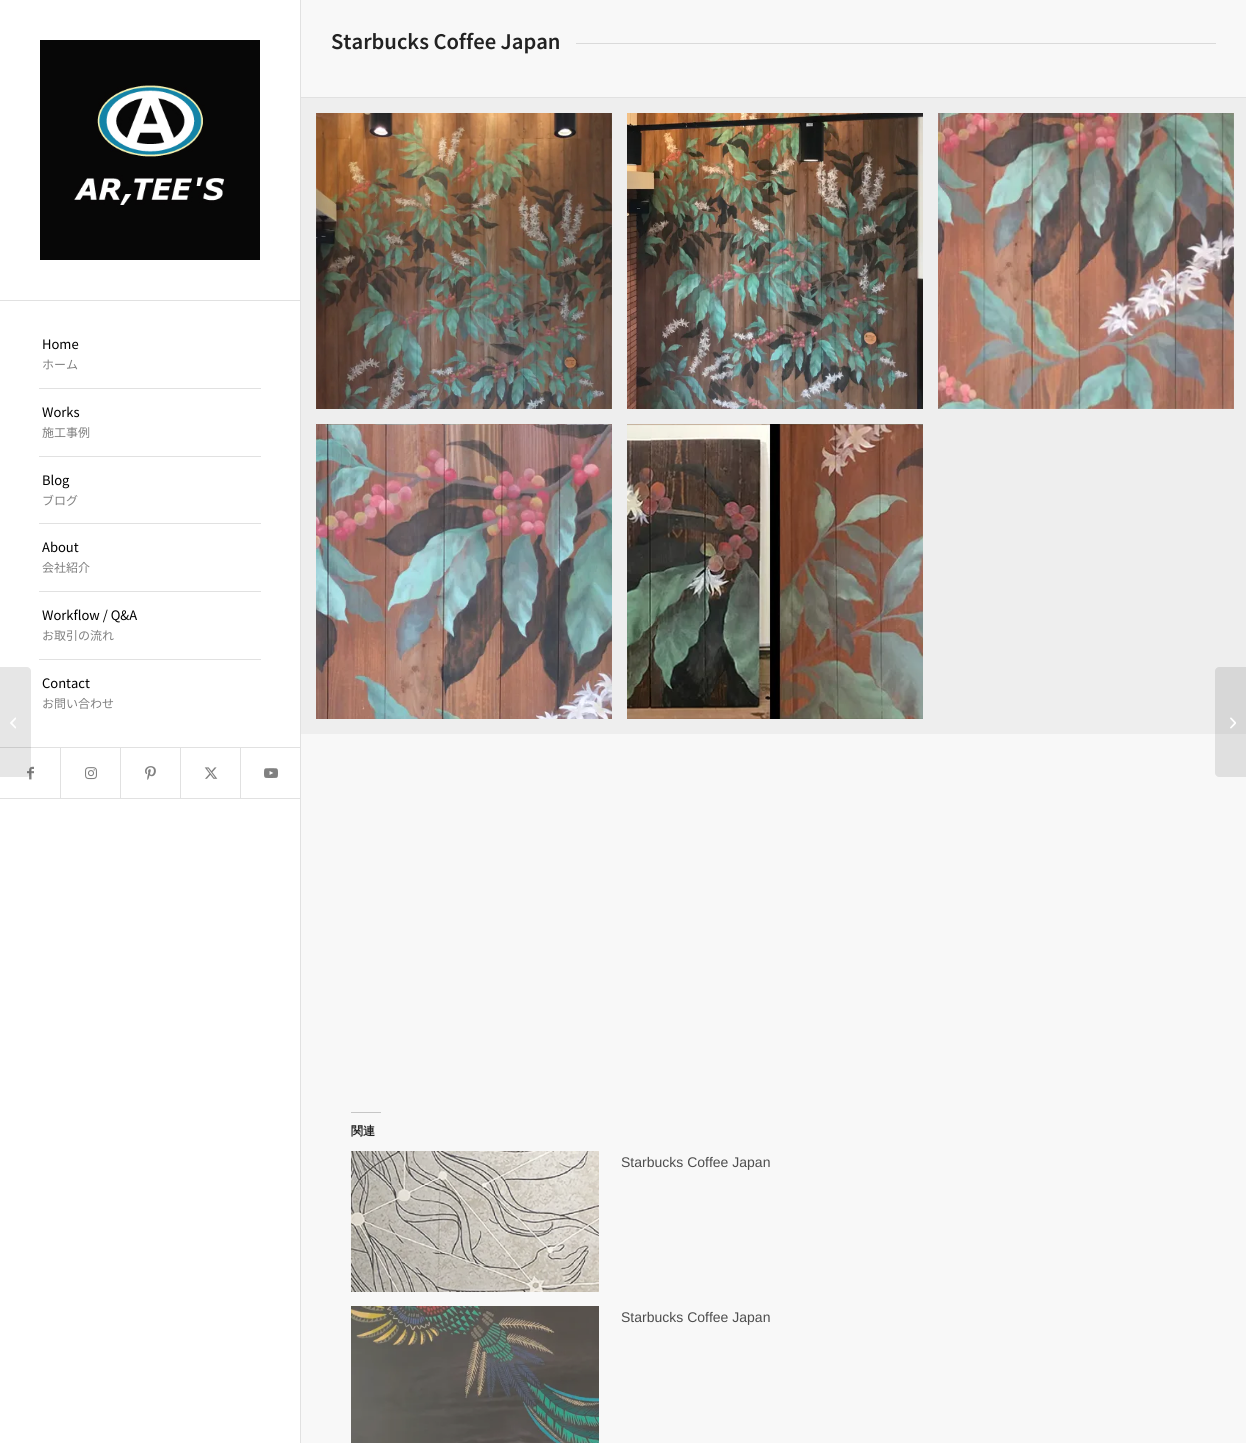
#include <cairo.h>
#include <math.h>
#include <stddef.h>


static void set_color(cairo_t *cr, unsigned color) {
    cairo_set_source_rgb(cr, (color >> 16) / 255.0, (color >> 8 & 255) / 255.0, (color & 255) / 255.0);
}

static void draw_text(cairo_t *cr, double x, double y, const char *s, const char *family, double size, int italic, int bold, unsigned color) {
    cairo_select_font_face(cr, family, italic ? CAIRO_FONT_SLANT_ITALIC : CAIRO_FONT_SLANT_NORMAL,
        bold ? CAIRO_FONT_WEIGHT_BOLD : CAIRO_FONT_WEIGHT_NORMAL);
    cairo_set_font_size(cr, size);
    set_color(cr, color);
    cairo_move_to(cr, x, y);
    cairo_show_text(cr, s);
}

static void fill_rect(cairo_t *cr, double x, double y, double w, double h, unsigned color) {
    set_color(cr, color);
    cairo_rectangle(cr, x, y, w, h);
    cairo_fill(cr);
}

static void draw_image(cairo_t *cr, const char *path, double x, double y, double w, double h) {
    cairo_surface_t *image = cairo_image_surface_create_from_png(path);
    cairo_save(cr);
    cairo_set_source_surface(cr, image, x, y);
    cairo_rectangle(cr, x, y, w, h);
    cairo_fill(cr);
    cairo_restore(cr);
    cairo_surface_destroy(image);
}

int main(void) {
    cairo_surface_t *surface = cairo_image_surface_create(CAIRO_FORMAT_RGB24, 1246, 1443);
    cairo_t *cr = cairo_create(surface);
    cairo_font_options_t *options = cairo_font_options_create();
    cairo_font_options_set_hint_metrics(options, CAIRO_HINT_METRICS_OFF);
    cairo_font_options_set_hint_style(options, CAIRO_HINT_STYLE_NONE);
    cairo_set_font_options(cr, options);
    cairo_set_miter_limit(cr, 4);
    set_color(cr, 0xFFFFFF);
    cairo_paint(cr);
    fill_rect(cr, 0, 798, 300, 1, 0xE1E1E1);
    fill_rect(cr, 0, 300, 300, 1, 0xE1E1E1);
    draw_image(cr, "assets/img1.png", 40, 40, 220, 220);
    fill_rect(cr, 39, 388, 222, 1, 0xE1E1E1);
    draw_text(cr, 42, 349, "Home", "Noto Sans JP", 13, 0, 0, 0x000000);
    draw_text(cr, 42, 369, "ホーム", "Noto Sans JP", 12, 0, 0, 0x808080);
    fill_rect(cr, 39, 456, 222, 1, 0xE1E1E1);
    draw_text(cr, 42, 417, "Works", "Noto Sans JP", 13, 0, 0, 0x000000);
    draw_text(cr, 42, 437, "施工事例", "Noto Sans JP", 12, 0, 0, 0x808080);
    fill_rect(cr, 39, 523, 222, 1, 0xE1E1E1);
    draw_text(cr, 42, 485, "Blog", "Noto Sans JP", 13, 0, 0, 0x000000);
    draw_text(cr, 42, 505, "ブログ", "Noto Sans JP", 12, 0, 0, 0x808080);
    fill_rect(cr, 39, 591, 222, 1, 0xE1E1E1);
    draw_text(cr, 42, 552, "About", "Noto Sans JP", 13, 0, 0, 0x000000);
    draw_text(cr, 42, 572, "会社紹介", "Noto Sans JP", 12, 0, 0, 0x808080);
    fill_rect(cr, 39, 659, 222, 1, 0xE1E1E1);
    draw_text(cr, 42, 620, "Workflow / Q&A", "Noto Sans JP", 13, 0, 0, 0x000000);
    draw_text(cr, 42, 640, "お取引の流れ", "Noto Sans JP", 12, 0, 0, 0x808080);
    draw_text(cr, 42, 688, "Contact", "Noto Sans JP", 13, 0, 0, 0x000000);
    draw_text(cr, 42, 708, "お問い合わせ", "Noto Sans JP", 12, 0, 0, 0x808080);
    fill_rect(cr, 0, 747, 300, 1, 0xE1E1E1);
    draw_image(cr, "assets/img2.png", 27, 766, 7, 14);
    fill_rect(cr, 60, 748, 1, 50, 0xE1E1E1);
    draw_image(cr, "assets/img3.png", 85, 767, 12, 13);
    fill_rect(cr, 120, 748, 1, 50, 0xE1E1E1);
    draw_image(cr, "assets/img4.png", 145, 766, 11, 14);
    fill_rect(cr, 180, 748, 1, 50, 0xE1E1E1);
    draw_image(cr, "assets/img5.png", 204, 767, 14, 12);
    fill_rect(cr, 240, 748, 1, 50, 0xE1E1E1);
    draw_image(cr, "assets/img6.png", 264, 768, 14, 10);
    fill_rect(cr, 300, 0, 1, 1443, 0xE1E1E1);
    fill_rect(cr, 301, 0, 945, 97, 0xF8F8F8);
    draw_text(cr, 331, 49, "Starbucks Coffee Japan", "Noto Sans JP SemiBold", 20, 0, 0, 0x222222);
    fill_rect(cr, 576, 43, 640, 1, 0xDADADA);
    fill_rect(cr, 301, 97, 945, 1, 0xE1E1E1);
    fill_rect(cr, 301, 98, 945, 636, 0xEEEEEE);
    draw_image(cr, "assets/img7.png", 316, 113, 296, 296);
    draw_image(cr, "assets/img8.png", 627, 113, 296, 296);
    draw_image(cr, "assets/img9.png", 938, 113, 296, 296);
    draw_image(cr, "assets/img10.png", 316, 424, 296, 295);
    draw_image(cr, "assets/img11.png", 627, 424, 296, 295);
    fill_rect(cr, 301, 734, 945, 709, 0xF8F8F8);
    fill_rect(cr, 351, 1112, 30, 1, 0xC6C6C6);
    draw_text(cr, 351, 1135, "関連", "WenQuanYi Zen Hei", 12, 0, 1, 0x222222);
    draw_image(cr, "assets/img12.png", 351, 1151, 248, 141);
    draw_text(cr, 621, 1167, "Starbucks Coffee Japan", "Liberation Sans", 14, 0, 0, 0x4D4D4D);
    draw_image(cr, "assets/img13.png", 351, 1306, 248, 137);
    draw_text(cr, 621, 1322, "Starbucks Coffee Japan", "Liberation Sans", 14, 0, 0, 0x4D4D4D);
    cairo_set_source_rgba(cr, 0, 0, 0, 0.1);
    cairo_new_path(cr);
    cairo_move_to(cr, 0, 667);
    cairo_line_to(cr, 27, 667);
    cairo_curve_to(cr, 29, 667, 31, 669, 31, 671);
    cairo_line_to(cr, 31, 773);
    cairo_curve_to(cr, 31, 775, 29, 777, 27, 777);
    cairo_line_to(cr, 0, 777);
    cairo_close_path(cr);
    cairo_fill(cr);
    draw_image(cr, "assets/img14.png", 10, 717, 6, 12);
    cairo_new_path(cr);
    cairo_move_to(cr, 1219, 667);
    cairo_line_to(cr, 1246, 667);
    cairo_line_to(cr, 1246, 777);
    cairo_line_to(cr, 1219, 777);
    cairo_curve_to(cr, 1217, 777, 1215, 775, 1215, 773);
    cairo_line_to(cr, 1215, 671);
    cairo_curve_to(cr, 1215, 669, 1217, 667, 1219, 667);
    cairo_close_path(cr);
    cairo_fill(cr);
    draw_image(cr, "assets/img15.png", 1230, 717, 6, 12);
    cairo_surface_write_to_png(surface, "output.png");
    cairo_font_options_destroy(options);
    cairo_destroy(cr);
    cairo_surface_destroy(surface);
    return 0;
}
